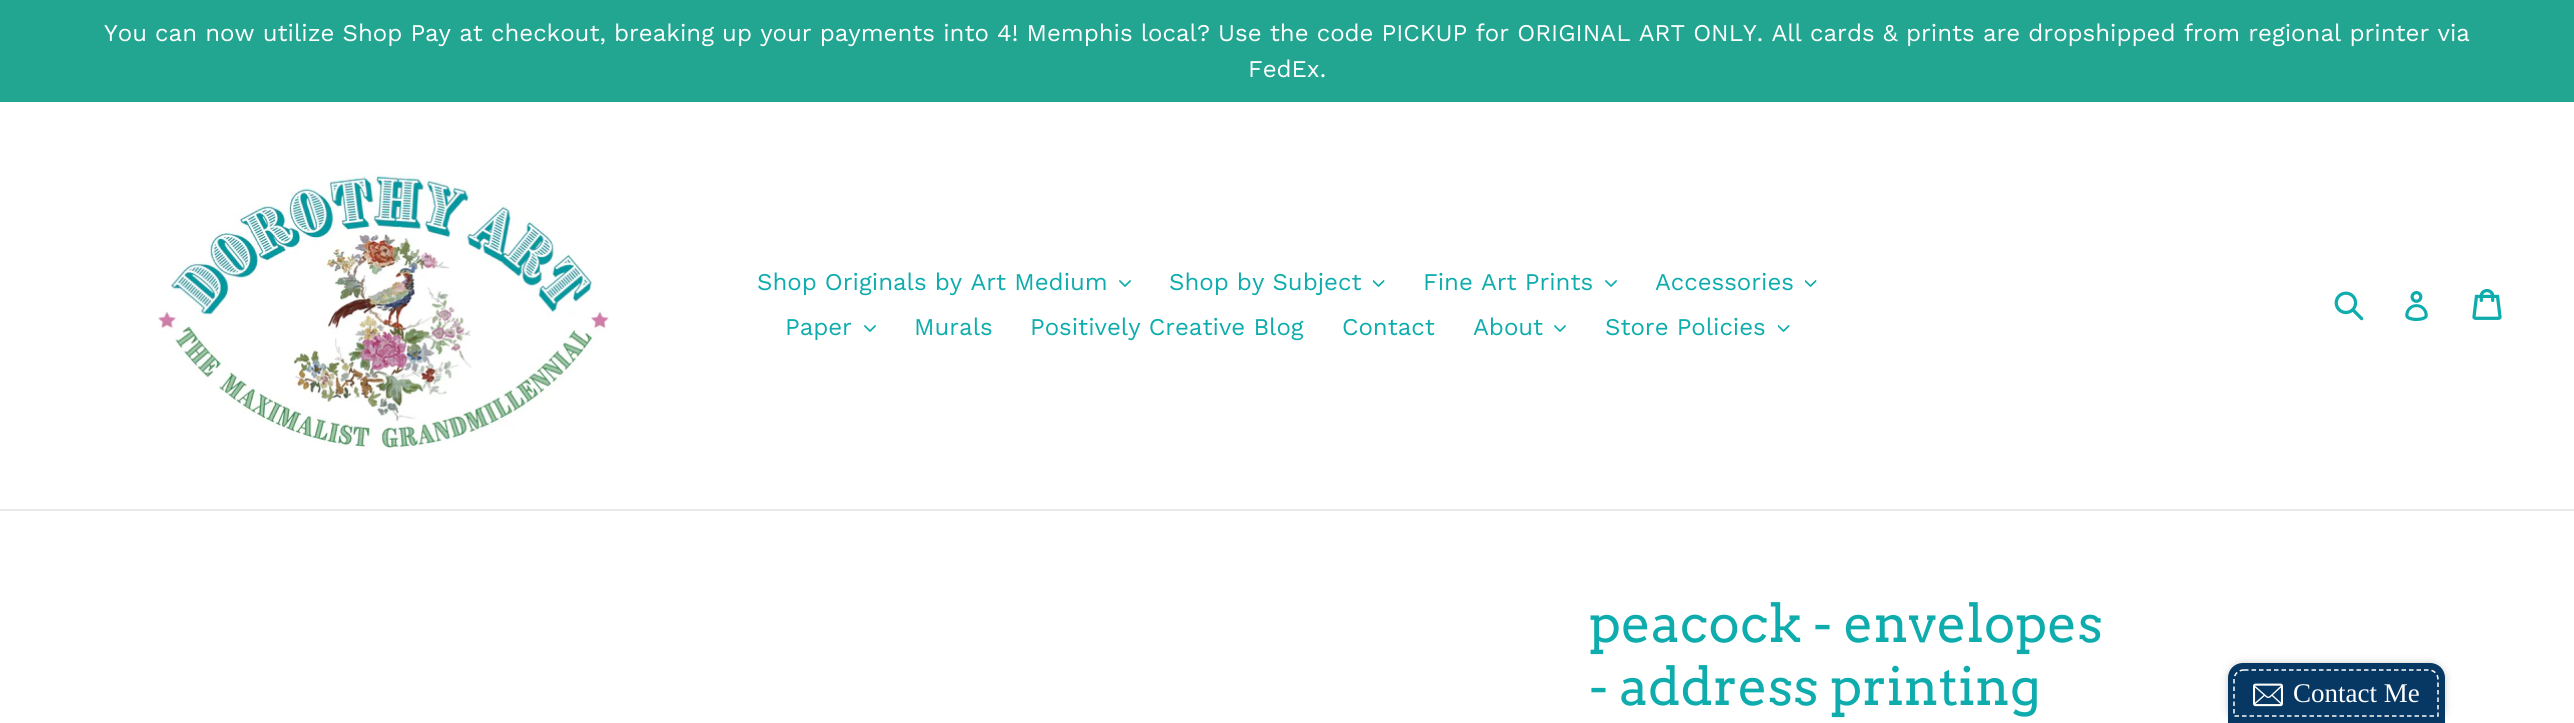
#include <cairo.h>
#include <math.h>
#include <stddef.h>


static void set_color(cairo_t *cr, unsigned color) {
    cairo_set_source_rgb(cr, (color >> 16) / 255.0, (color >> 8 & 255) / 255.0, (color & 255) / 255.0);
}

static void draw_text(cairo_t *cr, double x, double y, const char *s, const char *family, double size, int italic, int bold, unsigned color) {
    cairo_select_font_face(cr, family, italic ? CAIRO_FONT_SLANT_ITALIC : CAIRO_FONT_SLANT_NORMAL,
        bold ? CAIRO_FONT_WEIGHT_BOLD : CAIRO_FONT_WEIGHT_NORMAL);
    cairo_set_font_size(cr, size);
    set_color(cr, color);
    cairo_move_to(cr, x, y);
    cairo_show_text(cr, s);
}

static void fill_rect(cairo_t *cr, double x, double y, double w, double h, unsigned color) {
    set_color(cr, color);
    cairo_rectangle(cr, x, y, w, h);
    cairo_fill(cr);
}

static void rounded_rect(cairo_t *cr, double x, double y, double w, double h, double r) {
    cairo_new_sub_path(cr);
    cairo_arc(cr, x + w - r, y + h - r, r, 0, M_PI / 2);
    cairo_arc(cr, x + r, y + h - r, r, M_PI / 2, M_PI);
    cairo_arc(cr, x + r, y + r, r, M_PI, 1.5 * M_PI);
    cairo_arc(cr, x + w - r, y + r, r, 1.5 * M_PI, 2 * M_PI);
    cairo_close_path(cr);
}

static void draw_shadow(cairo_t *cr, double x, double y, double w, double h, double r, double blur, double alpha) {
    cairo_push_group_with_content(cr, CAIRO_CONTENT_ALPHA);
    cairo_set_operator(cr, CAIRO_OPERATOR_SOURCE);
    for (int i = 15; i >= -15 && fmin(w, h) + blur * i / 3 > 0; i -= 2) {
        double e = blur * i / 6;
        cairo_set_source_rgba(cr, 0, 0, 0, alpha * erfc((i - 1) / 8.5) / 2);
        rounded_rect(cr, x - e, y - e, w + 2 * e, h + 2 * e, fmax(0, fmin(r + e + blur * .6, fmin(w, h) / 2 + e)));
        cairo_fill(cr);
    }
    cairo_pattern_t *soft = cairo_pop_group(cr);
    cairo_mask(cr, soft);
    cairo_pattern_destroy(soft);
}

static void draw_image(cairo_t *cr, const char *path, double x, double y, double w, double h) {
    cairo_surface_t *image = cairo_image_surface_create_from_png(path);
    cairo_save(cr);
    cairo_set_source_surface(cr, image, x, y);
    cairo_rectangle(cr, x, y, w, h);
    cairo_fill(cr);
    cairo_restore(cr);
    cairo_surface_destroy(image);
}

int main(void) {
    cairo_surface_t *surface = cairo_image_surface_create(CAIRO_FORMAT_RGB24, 2574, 723);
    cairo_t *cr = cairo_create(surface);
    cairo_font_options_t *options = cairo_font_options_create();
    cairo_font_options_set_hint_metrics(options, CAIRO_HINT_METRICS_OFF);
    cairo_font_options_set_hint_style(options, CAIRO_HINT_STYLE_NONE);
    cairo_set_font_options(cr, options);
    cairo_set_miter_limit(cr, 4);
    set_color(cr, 0xFFFFFF);
    cairo_paint(cr);
    fill_rect(cr, 0, 0, 2574, 102, 0x22A691);
    draw_text(cr, 104, 41, "You can now utilize Shop Pay at checkout, breaking up your payments into 4! Memphis local? Use the code PICKUP for ORIGINAL ART ONLY. All cards & prints are dropshipped from regional printer via", "Work Sans", 24, 0, 0, 0xFFFFFF);
    draw_text(cr, 1248, 77, "FedEx.", "Work Sans", 24, 0, 0, 0xFFFFFF);
    fill_rect(cr, 0, 509, 2574, 2, 0xE8E9EB);
    draw_image(cr, "assets/img1.png", 158, 173, 451, 277);
    draw_text(cr, 757, 290, "Shop Originals by Art Medium", "Work Sans", 24, 0, 0, 0x0EACAC);
    draw_image(cr, "assets/img2.png", 1119, 280, 12, 7);
    draw_text(cr, 1169, 290, "Shop by Subject", "Work Sans", 24, 0, 0, 0x0EACAC);
    draw_image(cr, "assets/img3.png", 1373, 280, 12, 7);
    draw_text(cr, 1423, 290, "Fine Art Prints", "Work Sans", 24, 0, 0, 0x0EACAC);
    draw_image(cr, "assets/img2.png", 1605, 280, 12, 7);
    draw_text(cr, 1655, 290, "Accessories", "Work Sans", 24, 0, 0, 0x0EACAC);
    draw_image(cr, "assets/img3.png", 1805, 280, 12, 7);
    draw_text(cr, 785, 335, "Paper", "Work Sans", 24, 0, 0, 0x0EACAC);
    draw_image(cr, "assets/img2.png", 864, 325, 12, 7);
    draw_text(cr, 914, 335, "Murals", "Work Sans", 24, 0, 0, 0x0EACAC);
    draw_text(cr, 1030, 335, "Positively Creative Blog", "Work Sans", 24, 0, 0, 0x0EACAC);
    draw_text(cr, 1342, 335, "Contact", "Work Sans", 24, 0, 0, 0x0EACAC);
    draw_text(cr, 1473, 335, "About", "Work Sans", 24, 0, 0, 0x0EACAC);
    draw_image(cr, "assets/img2.png", 1554, 325, 12, 7);
    draw_text(cr, 1605, 335, "Store Policies", "Work Sans", 24, 0, 0, 0x0EACAC);
    draw_image(cr, "assets/img3.png", 1778, 325, 12, 7);
    draw_image(cr, "assets/img4.png", 2334, 291, 30, 30);
    draw_image(cr, "assets/img5.png", 2405, 291, 23, 30);
    draw_image(cr, "assets/img6.png", 2472, 288, 30, 32);
    draw_text(cr, 1589, 642, "peacock - envelopes", "Arvo", 52.5, 0, 0, 0x0EACAC);
    draw_text(cr, 1589, 705, "- address printing", "Arvo", 52.5, 0, 0, 0x0EACAC);
    set_color(cr, 0x000000);
    draw_shadow(cr, 2228, 663, 217, 60, 15, 4, 0.2);
    set_color(cr, 0x073763);
    cairo_new_path(cr);
    cairo_move_to(cr, 2243, 663);
    cairo_line_to(cr, 2430, 663);
    cairo_curve_to(cr, 2438.5, 663, 2445, 669.5, 2445, 678);
    cairo_line_to(cr, 2445, 723);
    cairo_line_to(cr, 2228, 723);
    cairo_line_to(cr, 2228, 678);
    cairo_curve_to(cr, 2228, 669.5, 2234.5, 663, 2243, 663);
    cairo_close_path(cr);
    cairo_fill(cr);
    cairo_new_path(cr);
    cairo_move_to(cr, 2244, 670);
    cairo_line_to(cr, 2428.5, 670);
    cairo_curve_to(cr, 2434, 670, 2438, 674, 2438, 679.5);
    cairo_line_to(cr, 2438, 716);
    cairo_line_to(cr, 2234, 716);
    cairo_line_to(cr, 2234, 679.5);
    cairo_curve_to(cr, 2234, 674, 2238.5, 670, 2244, 670);
    cairo_close_path(cr);
    set_color(cr, 0xFFFFFF);
    cairo_set_line_width(cr, 1.5);
    cairo_set_dash(cr, (double[]){4.5, 3}, 2, 0);
    cairo_stroke(cr);
    draw_image(cr, "assets/img7.png", 2253, 683, 30, 24);
    draw_text(cr, 2293, 702, "Contact Me", "Liberation Serif", 27, 0, 0, 0xFFFFFF);
    cairo_surface_write_to_png(surface, "output.png");
    cairo_font_options_destroy(options);
    cairo_destroy(cr);
    cairo_surface_destroy(surface);
    return 0;
}
